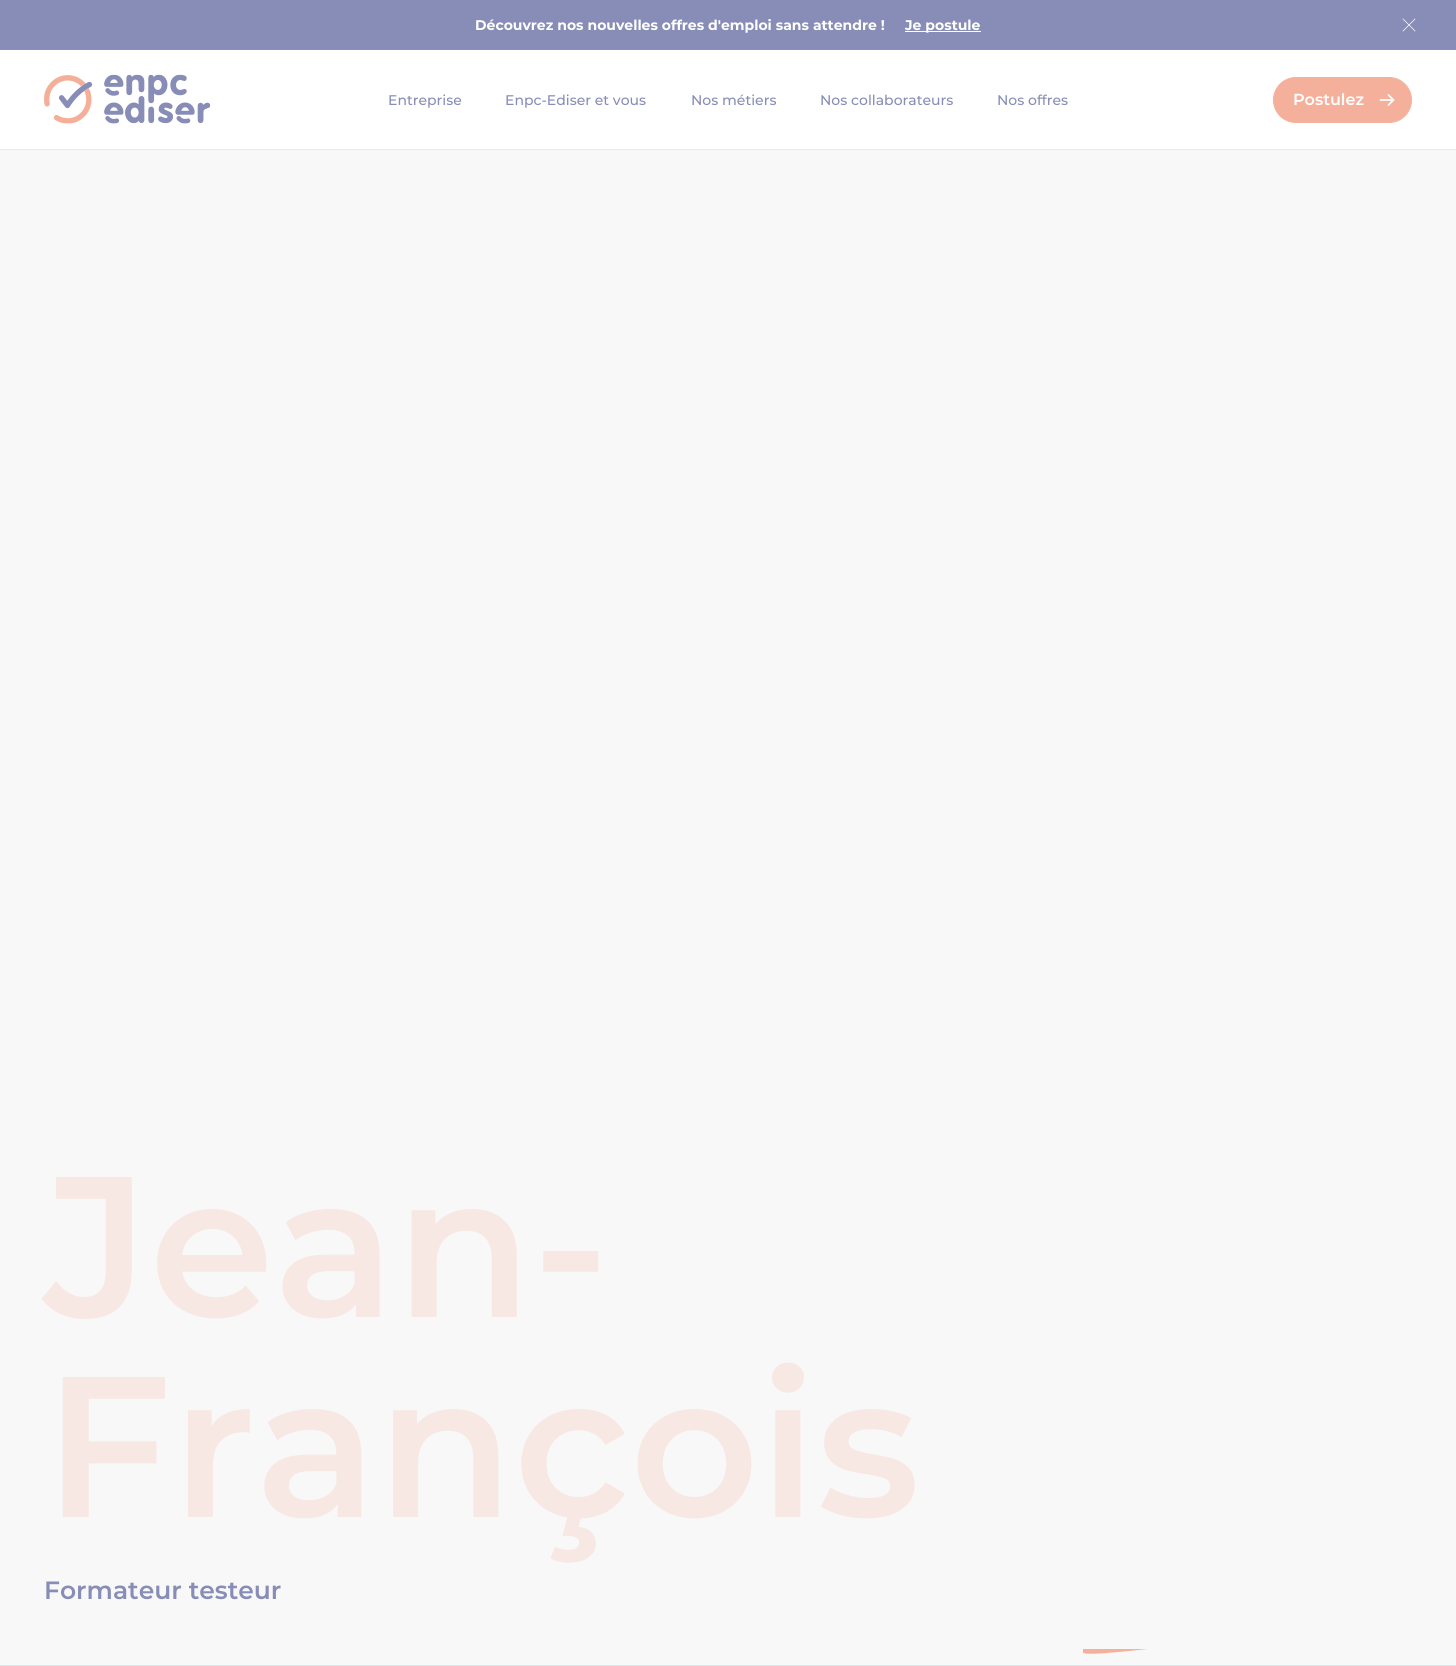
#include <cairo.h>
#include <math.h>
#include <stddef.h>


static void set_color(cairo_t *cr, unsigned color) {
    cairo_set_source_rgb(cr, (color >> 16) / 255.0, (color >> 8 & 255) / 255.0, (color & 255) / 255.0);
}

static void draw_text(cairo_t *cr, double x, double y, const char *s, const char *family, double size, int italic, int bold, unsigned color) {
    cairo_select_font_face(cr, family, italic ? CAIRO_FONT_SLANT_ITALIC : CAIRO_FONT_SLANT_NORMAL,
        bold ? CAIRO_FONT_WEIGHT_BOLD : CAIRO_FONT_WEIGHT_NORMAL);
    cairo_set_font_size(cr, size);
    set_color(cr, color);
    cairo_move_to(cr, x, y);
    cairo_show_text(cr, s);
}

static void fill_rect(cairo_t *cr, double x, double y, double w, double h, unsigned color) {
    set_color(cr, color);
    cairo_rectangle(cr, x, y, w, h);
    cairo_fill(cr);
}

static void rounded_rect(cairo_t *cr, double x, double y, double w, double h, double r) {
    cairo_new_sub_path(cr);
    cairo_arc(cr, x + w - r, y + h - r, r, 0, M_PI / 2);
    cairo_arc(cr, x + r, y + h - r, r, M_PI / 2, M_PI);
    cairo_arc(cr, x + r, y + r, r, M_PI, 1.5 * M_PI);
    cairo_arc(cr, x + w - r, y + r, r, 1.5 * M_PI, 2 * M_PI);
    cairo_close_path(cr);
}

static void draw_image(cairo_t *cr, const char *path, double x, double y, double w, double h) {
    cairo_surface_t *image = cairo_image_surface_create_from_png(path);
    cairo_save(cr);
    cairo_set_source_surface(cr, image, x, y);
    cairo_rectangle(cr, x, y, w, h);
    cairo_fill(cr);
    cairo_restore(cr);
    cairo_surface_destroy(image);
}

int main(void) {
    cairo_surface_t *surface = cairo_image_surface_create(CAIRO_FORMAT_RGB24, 1456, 1666);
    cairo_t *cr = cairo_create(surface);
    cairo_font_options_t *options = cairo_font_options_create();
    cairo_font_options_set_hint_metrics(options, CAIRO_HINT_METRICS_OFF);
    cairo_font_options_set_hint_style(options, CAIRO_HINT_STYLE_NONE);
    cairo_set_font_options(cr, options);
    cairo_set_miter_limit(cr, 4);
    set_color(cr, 0xF8F8F8);
    cairo_paint(cr);
    fill_rect(cr, 0, 0, 1456, 50, 0x888DB7);
    draw_text(cr, 475, 30, "Découvrez nos nouvelles offres d'emploi sans attendre !", "Montserrat", 14, 0, 1, 0xFFFFFF);
    fill_rect(cr, 905, 31, 76, 1, 0xFFFFFF);
    draw_text(cr, 905, 30, "Je postule", "Montserrat", 14, 0, 1, 0xFFFFFF);
    cairo_new_path(cr);
    cairo_move_to(cr, 1403, 18.5);
    cairo_line_to(cr, 1415.5, 31);
    cairo_line_to(cr, 1415, 31.5);
    cairo_line_to(cr, 1402.5, 19);
    cairo_close_path(cr);
    cairo_fill(cr);
    cairo_new_path(cr);
    cairo_move_to(cr, 1402.5, 31);
    cairo_line_to(cr, 1415, 18.5);
    cairo_line_to(cr, 1415.5, 19);
    cairo_line_to(cr, 1403, 31.5);
    cairo_close_path(cr);
    cairo_fill(cr);
    fill_rect(cr, 0, 50, 1456, 99, 0xFFFFFF);
    fill_rect(cr, 0, 149, 1456, 1, 0xE7E8F1);
    draw_image(cr, "assets/img1.png", 44, 74, 167, 50);
    draw_text(cr, 388, 105, "Entreprise", "Montserrat Medium", 14, 0, 0, 0x888DB7);
    draw_text(cr, 505, 105, "Enpc-Ediser et vous", "Montserrat Medium", 14, 0, 0, 0x888DB7);
    draw_text(cr, 691, 105, "Nos métiers", "Montserrat Medium", 14, 0, 0, 0x888DB7);
    draw_text(cr, 820, 105, "Nos collaborateurs", "Montserrat Medium", 14, 0, 0, 0x888DB7);
    draw_text(cr, 997, 105, "Nos offres", "Montserrat Medium", 14, 0, 0, 0x888DB7);
    set_color(cr, 0xF5B09C);
    rounded_rect(cr, 1273.5, 77.5, 138, 45, 22.5);
    cairo_fill_preserve(cr);
    cairo_set_line_width(cr, 1);
    cairo_stroke(cr);
    draw_text(cr, 1293, 105, "Postulez", "Montserrat SemiBold", 16, 0, 0, 0xFFFFFF);
    cairo_new_path(cr);
    cairo_move_to(cr, 1380.5, 100);
    cairo_line_to(cr, 1393.5, 100);
    cairo_move_to(cr, 1388.5, 95);
    cairo_line_to(cr, 1393.5, 100);
    cairo_line_to(cr, 1388.5, 105);
    cairo_set_line_width(cr, 1.7);
    cairo_set_line_cap(cr, CAIRO_LINE_CAP_ROUND);
    cairo_set_line_join(cr, CAIRO_LINE_JOIN_ROUND);
    cairo_stroke(cr);
    fill_rect(cr, 0, 1665, 1456, 1, 0xE1E3EB);
    draw_text(cr, 44, 1317, "Jean-", "Montserrat SemiBold", 200, 0, 0, 0xF7E8E4);
    draw_text(cr, 44, 1517, "François", "Montserrat SemiBold", 200, 0, 0, 0xF7E8E4);
    draw_text(cr, 44, 1599, "Formateur testeur", "Montserrat SemiBold", 25, 0, 0, 0x888DB7);
    cairo_save(cr);
    cairo_rectangle(cr, 744, 1649, 676, 16);
    cairo_clip(cr);
    set_color(cr, 0xF5B09C);
    cairo_new_path(cr);
    cairo_move_to(cr, 1408, 1607);
    cairo_curve_to(cr, 1369, 1620, 1075, 1663, 1083, 1652);
    cairo_line_to(cr, 1083, 1397);
    cairo_line_to(cr, 1419, 1346);
    cairo_close_path(cr);
    cairo_fill(cr);
    cairo_restore(cr);
    cairo_surface_write_to_png(surface, "output.png");
    cairo_font_options_destroy(options);
    cairo_destroy(cr);
    cairo_surface_destroy(surface);
    return 0;
}
